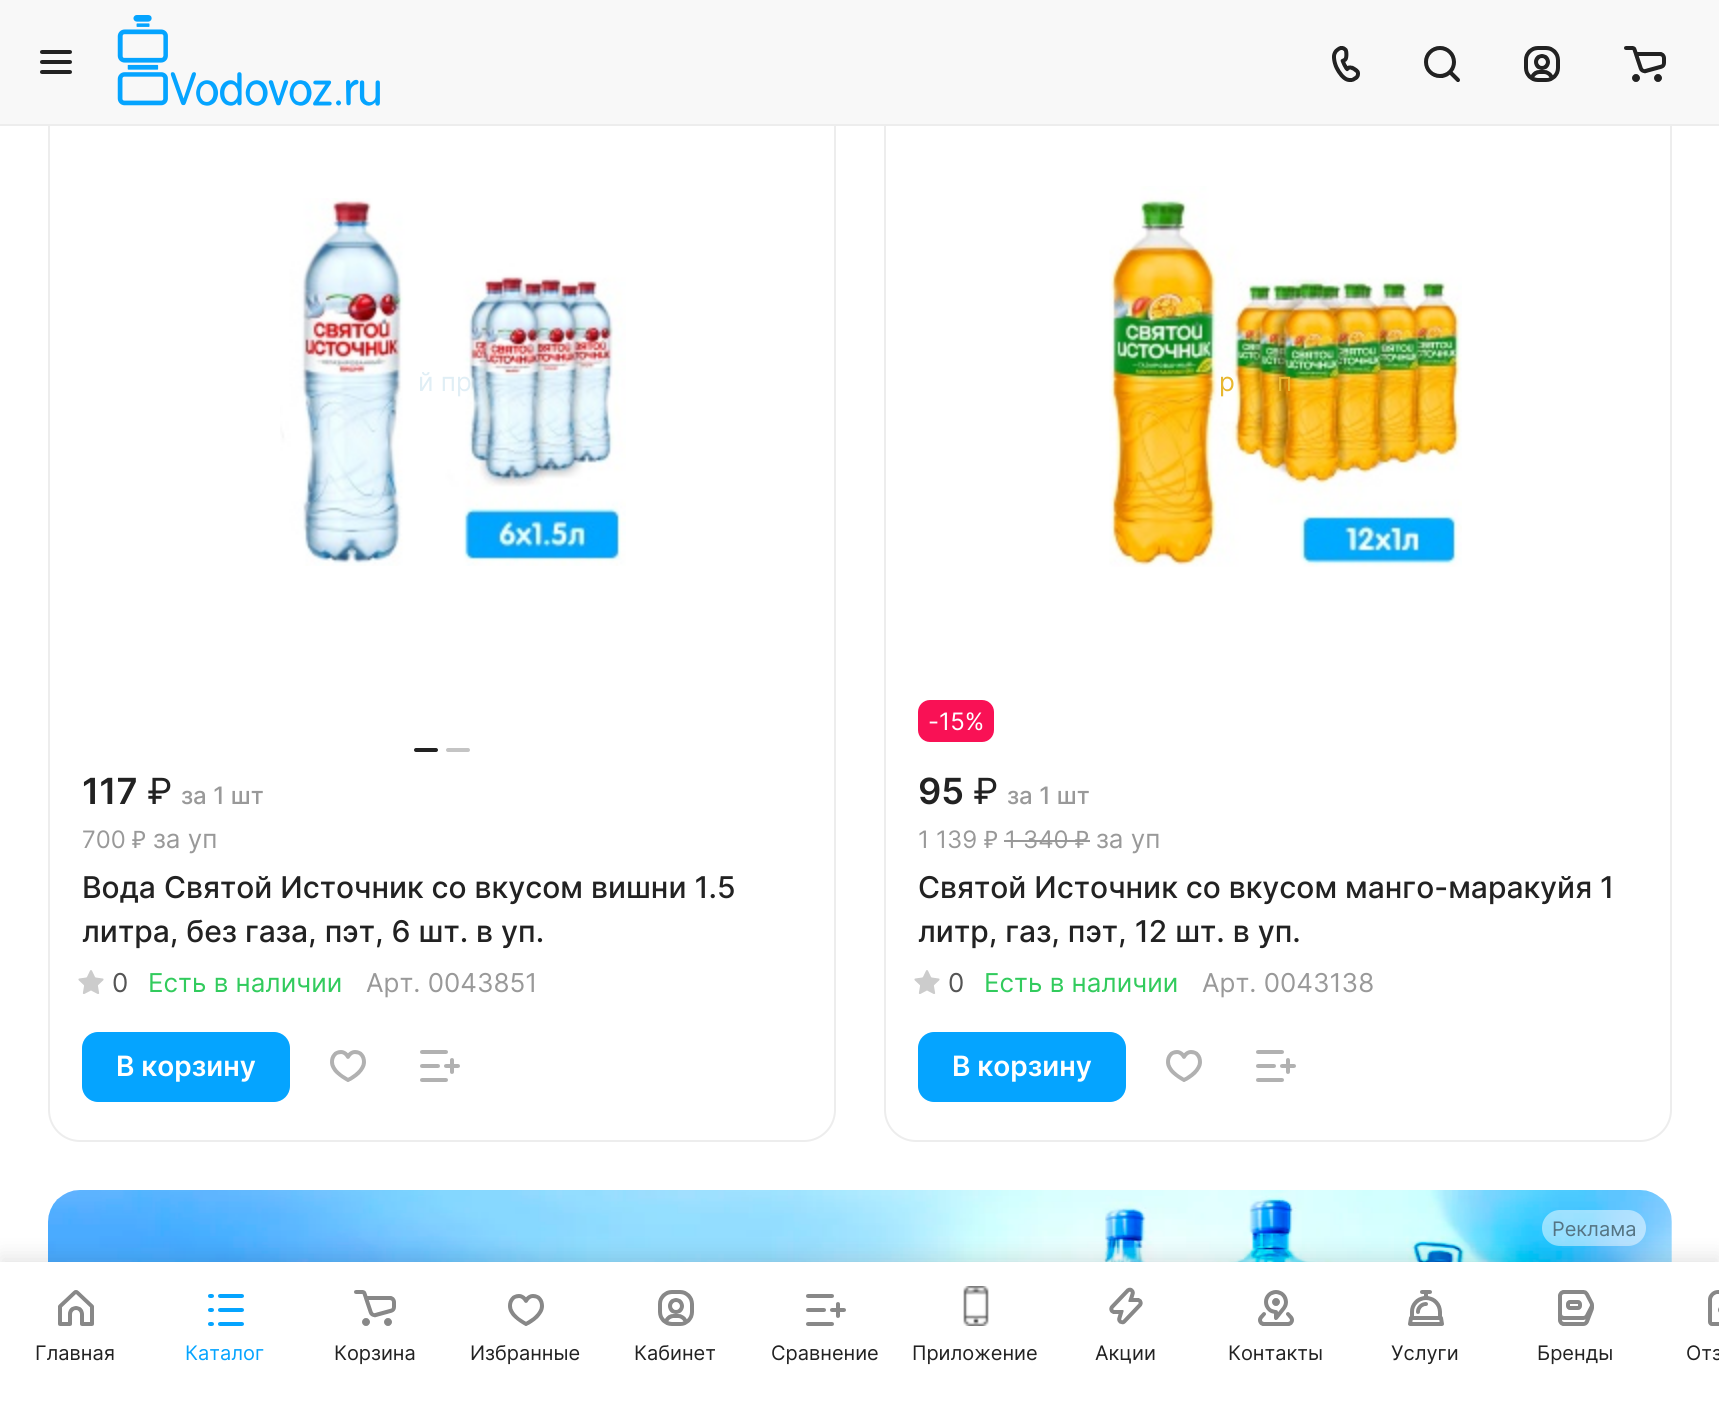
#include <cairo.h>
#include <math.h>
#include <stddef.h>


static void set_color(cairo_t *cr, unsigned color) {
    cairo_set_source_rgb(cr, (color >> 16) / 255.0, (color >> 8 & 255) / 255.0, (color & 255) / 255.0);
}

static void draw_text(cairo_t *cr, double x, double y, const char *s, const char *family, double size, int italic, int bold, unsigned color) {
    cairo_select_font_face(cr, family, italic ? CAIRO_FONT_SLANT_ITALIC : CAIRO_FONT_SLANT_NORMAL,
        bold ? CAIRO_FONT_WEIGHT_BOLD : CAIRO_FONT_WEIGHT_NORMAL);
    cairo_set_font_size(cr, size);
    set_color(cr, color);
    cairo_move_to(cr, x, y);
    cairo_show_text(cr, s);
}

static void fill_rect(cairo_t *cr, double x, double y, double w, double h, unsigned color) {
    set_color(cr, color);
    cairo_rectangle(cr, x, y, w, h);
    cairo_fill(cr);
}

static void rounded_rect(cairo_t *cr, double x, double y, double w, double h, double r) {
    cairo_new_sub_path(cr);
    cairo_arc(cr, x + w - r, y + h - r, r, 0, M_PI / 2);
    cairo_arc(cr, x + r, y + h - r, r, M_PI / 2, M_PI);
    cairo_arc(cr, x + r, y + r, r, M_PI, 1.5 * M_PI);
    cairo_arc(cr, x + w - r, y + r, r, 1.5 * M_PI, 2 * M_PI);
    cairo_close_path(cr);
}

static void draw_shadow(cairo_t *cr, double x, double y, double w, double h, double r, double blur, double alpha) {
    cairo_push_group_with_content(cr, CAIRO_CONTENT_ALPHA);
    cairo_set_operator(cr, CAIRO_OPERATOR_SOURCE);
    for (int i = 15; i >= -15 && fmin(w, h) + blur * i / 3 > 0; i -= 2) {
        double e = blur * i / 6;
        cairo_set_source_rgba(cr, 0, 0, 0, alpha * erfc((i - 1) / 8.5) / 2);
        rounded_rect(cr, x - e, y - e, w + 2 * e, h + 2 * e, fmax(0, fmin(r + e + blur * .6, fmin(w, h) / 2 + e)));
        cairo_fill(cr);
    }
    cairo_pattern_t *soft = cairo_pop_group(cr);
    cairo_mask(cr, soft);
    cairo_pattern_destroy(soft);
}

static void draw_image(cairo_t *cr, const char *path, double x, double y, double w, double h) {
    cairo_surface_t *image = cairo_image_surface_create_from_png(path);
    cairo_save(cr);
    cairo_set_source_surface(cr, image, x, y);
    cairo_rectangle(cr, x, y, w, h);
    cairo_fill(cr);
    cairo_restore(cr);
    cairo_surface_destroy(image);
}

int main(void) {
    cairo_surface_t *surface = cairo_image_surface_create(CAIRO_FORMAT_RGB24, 1719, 1404);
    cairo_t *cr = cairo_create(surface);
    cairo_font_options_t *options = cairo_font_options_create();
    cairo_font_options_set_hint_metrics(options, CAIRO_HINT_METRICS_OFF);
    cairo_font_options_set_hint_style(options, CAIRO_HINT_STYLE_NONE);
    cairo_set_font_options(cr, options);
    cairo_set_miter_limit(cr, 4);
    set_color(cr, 0xFFFFFF);
    cairo_paint(cr);
    rounded_rect(cr, 49, -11, 786, 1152, 31);
    set_color(cr, 0xEDEDED);
    cairo_stroke(cr);
    rounded_rect(cr, 885, -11, 786, 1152, 31);
    cairo_stroke(cr);
    fill_rect(cr, 0, 124, 1719, 2, 0xEDEDED);
    fill_rect(cr, 0, 0, 1719, 124, 0xF8F8F8);
    draw_image(cr, "assets/img1.png", 40, 50, 32, 24);
    draw_image(cr, "assets/img2.png", 117, 15, 263, 91);
    draw_image(cr, "assets/img3.png", 1332, 46, 28, 36);
    draw_image(cr, "assets/img4.png", 1424, 46, 36, 36);
    draw_image(cr, "assets/img5.png", 1524, 46, 36, 36);
    draw_image(cr, "assets/img6.png", 1624, 46, 42, 36);
    draw_image(cr, "assets/img7.png", 280, 198, 346, 368);
    draw_text(cr, 418, 391, "й пр", "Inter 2", 26, 0, 0, 0xE0EEF5);
    set_color(cr, 0x222222);
    rounded_rect(cr, 414, 748, 24, 4, 2);
    cairo_fill(cr);
    set_color(cr, 0xC4C4C4);
    rounded_rect(cr, 446, 748, 24, 4, 2);
    cairo_fill(cr);
    draw_text(cr, 82, 804, "117", "Inter SemiBold", 36, 0, 0, 0x222222);
    draw_text(cr, 147, 804, "₽", "Inter", 36, 0, 0, 0x222222);
    draw_text(cr, 181, 804, "за 1 шт", "Inter Medium", 24, 0, 0, 0x999999);
    draw_text(cr, 82, 848, "700", "Inter 2", 24, 0, 0, 0x999999);
    draw_text(cr, 132, 848, "₽", "Noto Sans", 24, 0, 0, 0x999999);
    draw_text(cr, 153, 848, "за уп", "Inter 2", 26, 0, 0, 0x999999);
    draw_text(cr, 82, 898, "Вода Святой Источник со вкусом вишни 1.5", "Inter Medium", 30, 0, 0, 0x222222);
    draw_text(cr, 82, 942, "литра, без газа, пэт, 6 шт. в уп.", "Inter Medium", 30, 0, 0, 0x222222);
    draw_image(cr, "assets/img8.png", 78, 970, 26, 24);
    draw_text(cr, 112, 992, "0", "Inter 2", 26, 0, 0, 0x555555);
    draw_text(cr, 148, 992, "Есть в наличии", "Inter 2", 26, 0, 0, 0x32CB5D);
    draw_text(cr, 366, 992, "Арт. 0043851", "Inter 2", 26, 0, 0, 0x999999);
    set_color(cr, 0x05A4FF);
    rounded_rect(cr, 83, 1033, 206, 68, 15);
    cairo_fill_preserve(cr);
    cairo_stroke(cr);
    draw_text(cr, 116, 1076, "В корзину", "Inter SemiBold", 28, 0, 0, 0xFFFFFF);
    draw_image(cr, "assets/img9.png", 330, 1050, 36, 32);
    draw_image(cr, "assets/img10.png", 420, 1050, 40, 32);
    draw_image(cr, "assets/img11.png", 1109, 186, 353, 381);
    draw_text(cr, 1219, 391, "р", "Inter 2", 26, 0, 0, 0xE8B72F);
    draw_text(cr, 1277, 391, "п", "Inter 2", 26, 0, 0, 0xE8B72F);
    set_color(cr, 0xF91155);
    rounded_rect(cr, 918, 700, 76, 42, 12);
    cairo_fill(cr);
    draw_text(cr, 928, 730, "-15%", "Inter 2", 24, 0, 0, 0xFFFFFF);
    draw_text(cr, 918, 804, "95", "Inter SemiBold", 36, 0, 0, 0x222222);
    draw_text(cr, 973, 804, "₽", "Inter", 36, 0, 0, 0x222222);
    draw_text(cr, 1007, 804, "за 1 шт", "Inter Medium", 24, 0, 0, 0x999999);
    draw_text(cr, 918, 848, "1 139", "Inter 2", 24, 0, 0, 0x999999);
    draw_text(cr, 984, 848, "₽", "Noto Sans", 24, 0, 0, 0x999999);
    draw_text(cr, 1005, 848, "1 340", "Inter 2", 24, 0, 0, 0x999999);
    fill_rect(cr, 1004, 840, 86, 2, 0x999999);
    draw_text(cr, 1075, 848, "₽", "Noto Sans", 24, 0, 0, 0x999999);
    draw_text(cr, 1096, 848, "за уп", "Inter 2", 26, 0, 0, 0x999999);
    draw_text(cr, 918, 898, "Святой Источник со вкусом манго-маракуйя 1", "Inter Medium", 30, 0, 0, 0x222222);
    draw_text(cr, 918, 942, "литр, газ, пэт, 12 шт. в уп.", "Inter Medium", 30, 0, 0, 0x222222);
    draw_image(cr, "assets/img8.png", 914, 970, 26, 24);
    draw_text(cr, 948, 992, "0", "Inter 2", 26, 0, 0, 0x555555);
    draw_text(cr, 984, 992, "Есть в наличии", "Inter 2", 26, 0, 0, 0x32CB5D);
    draw_text(cr, 1202, 992, "Арт. 0043138", "Inter 2", 26, 0, 0, 0x999999);
    set_color(cr, 0x05A4FF);
    rounded_rect(cr, 919, 1033, 206, 68, 15);
    cairo_fill_preserve(cr);
    cairo_stroke(cr);
    draw_text(cr, 952, 1076, "В корзину", "Inter SemiBold", 28, 0, 0, 0xFFFFFF);
    draw_image(cr, "assets/img9.png", 1166, 1050, 36, 32);
    draw_image(cr, "assets/img10.png", 1256, 1050, 40, 32);
    draw_image(cr, "assets/img12.png", 48, 1190, 1624, 72);
    cairo_set_source_rgba(cr, 1, 1, 1, 0.48);
    rounded_rect(cr, 1542, 1210, 104, 36, 18);
    cairo_fill(cr);
    draw_text(cr, 1552, 1236, "Реклама", "Inter 2", 20, 0, 0, 0x557483);
    set_color(cr, 0x000000);
    draw_shadow(cr, 0, 1256, 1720, 142, 0, 10, 0.1);
    fill_rect(cr, 0, 1262, 1719, 142, 0xFFFFFF);
    draw_image(cr, "assets/img13.png", 58, 1290, 36, 36);
    draw_text(cr, 35, 1360, "Главная", "Inter 2", 20, 0, 0, 0x222222);
    draw_image(cr, "assets/img14.png", 208, 1294, 36, 32);
    draw_text(cr, 185, 1360, "Каталог", "Inter 2", 20, 0, 0, 0x05A4FF);
    draw_image(cr, "assets/img15.png", 354, 1290, 42, 36);
    draw_text(cr, 334, 1360, "Корзина", "Inter 2", 20, 0, 0, 0x222222);
    draw_image(cr, "assets/img16.png", 508, 1294, 36, 32);
    draw_text(cr, 470, 1360, "Избранные", "Inter 2", 20, 0, 0, 0x222222);
    draw_image(cr, "assets/img17.png", 658, 1290, 36, 36);
    draw_text(cr, 634, 1360, "Кабинет", "Inter 2", 20, 0, 0, 0x222222);
    draw_image(cr, "assets/img18.png", 806, 1294, 40, 32);
    draw_text(cr, 771, 1360, "Сравнение", "Inter 2", 20, 0, 0, 0x222222);
    draw_image(cr, "assets/img19.png", 963, 1286, 26, 40);
    draw_text(cr, 912, 1360, "Приложение", "Inter 2", 20, 0, 0, 0x222222);
    draw_image(cr, "assets/img20.png", 1109, 1287, 34, 38);
    draw_text(cr, 1095, 1360, "Акции", "Inter 2", 20, 0, 0, 0x222222);
    draw_image(cr, "assets/img21.png", 1258, 1290, 36, 36);
    draw_text(cr, 1228, 1360, "Контакты", "Inter 2", 20, 0, 0, 0x222222);
    draw_image(cr, "assets/img22.png", 1408, 1290, 36, 36);
    draw_text(cr, 1391, 1360, "Услуги", "Inter 2", 20, 0, 0, 0x222222);
    draw_image(cr, "assets/img23.png", 1558, 1290, 36, 36);
    draw_text(cr, 1537, 1360, "Бренды", "Inter 2", 20, 0, 0, 0x222222);
    draw_image(cr, "assets/img24.png", 1708, 1290, 11, 36);
    draw_text(cr, 1686, 1360, "Отз", "Inter 2", 20, 0, 0, 0x222222);
    cairo_surface_write_to_png(surface, "output.png");
    cairo_font_options_destroy(options);
    cairo_destroy(cr);
    cairo_surface_destroy(surface);
    return 0;
}
